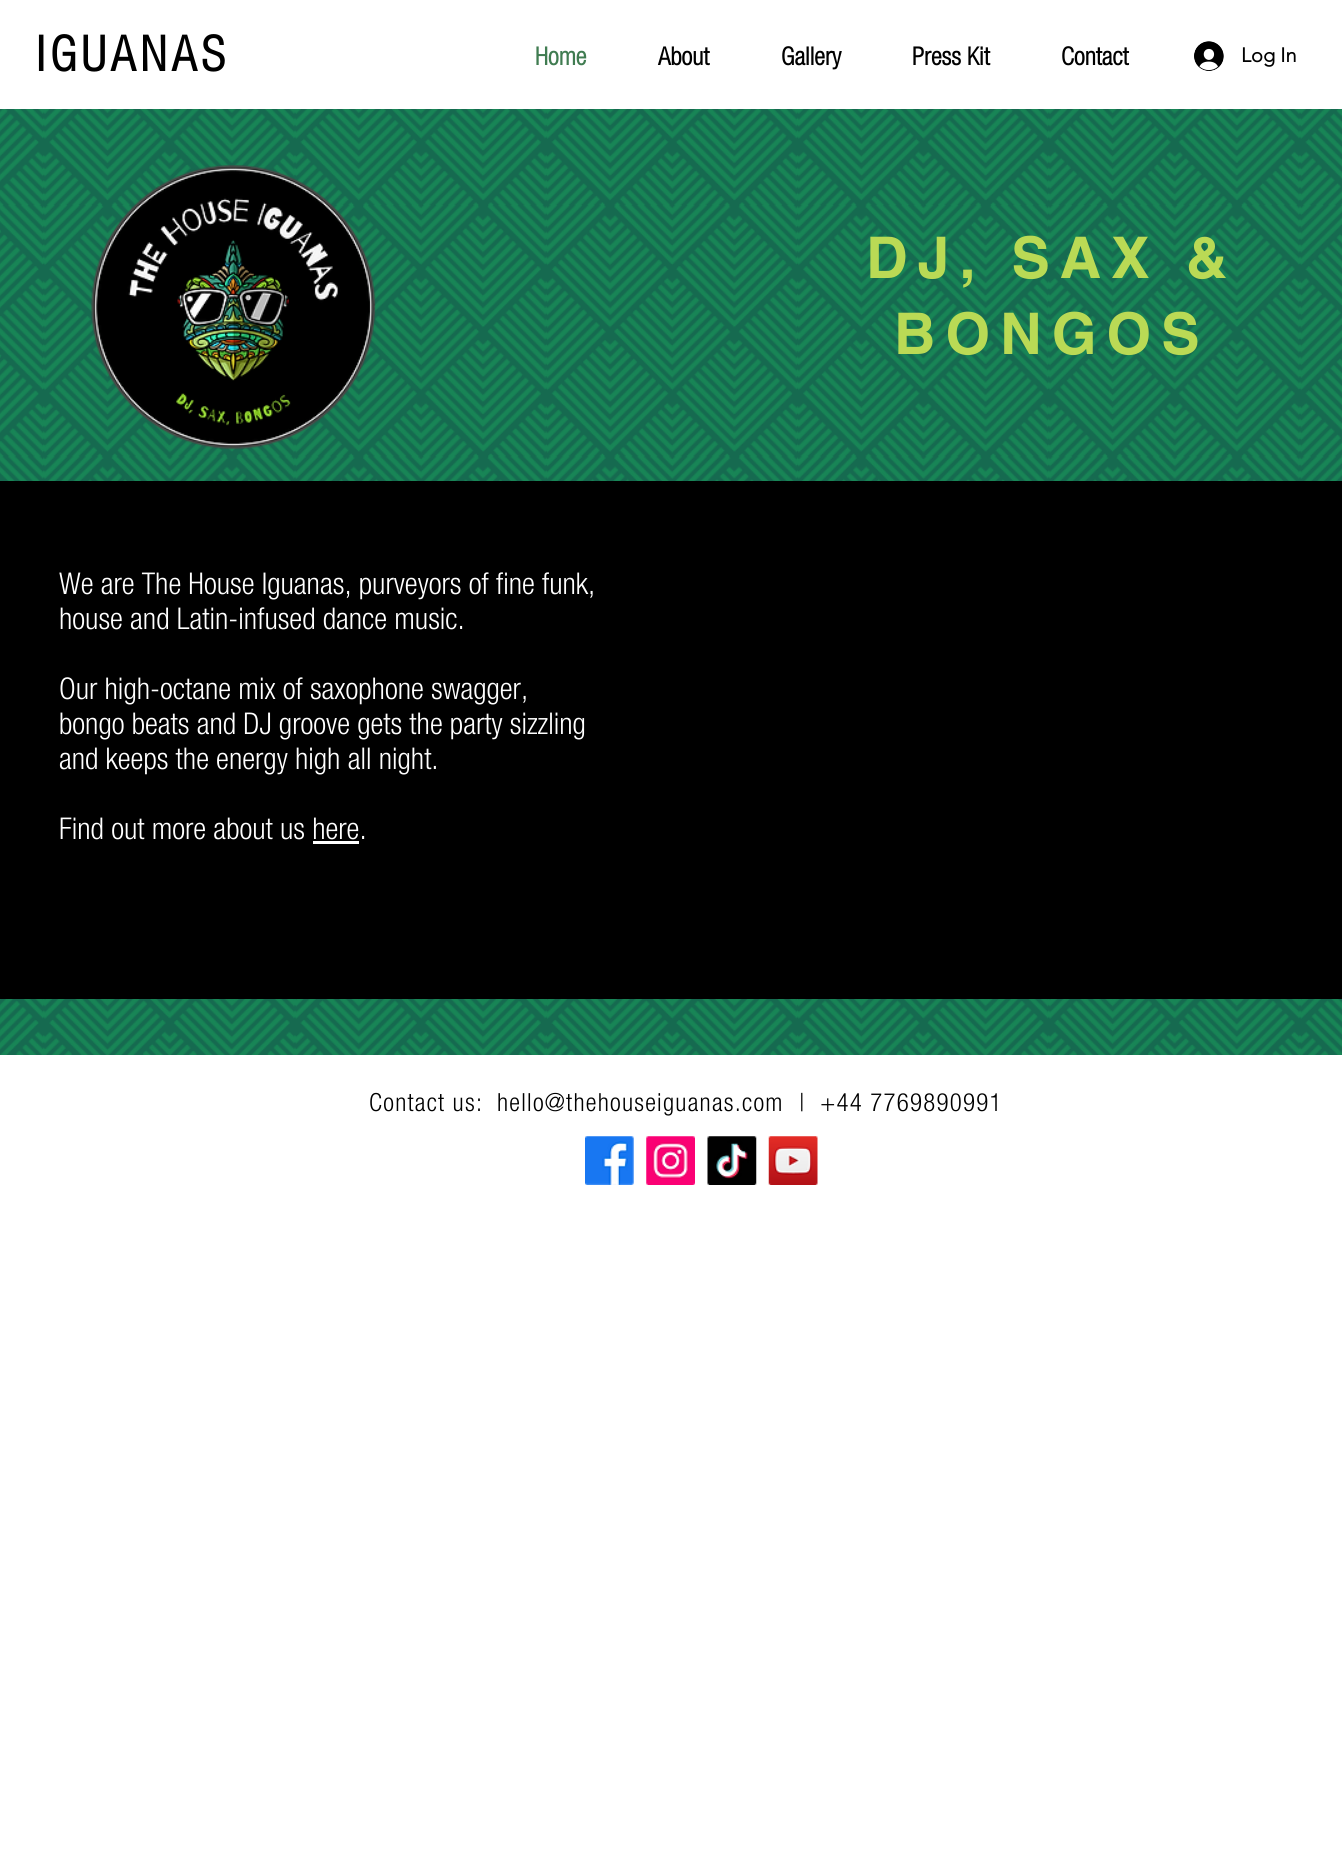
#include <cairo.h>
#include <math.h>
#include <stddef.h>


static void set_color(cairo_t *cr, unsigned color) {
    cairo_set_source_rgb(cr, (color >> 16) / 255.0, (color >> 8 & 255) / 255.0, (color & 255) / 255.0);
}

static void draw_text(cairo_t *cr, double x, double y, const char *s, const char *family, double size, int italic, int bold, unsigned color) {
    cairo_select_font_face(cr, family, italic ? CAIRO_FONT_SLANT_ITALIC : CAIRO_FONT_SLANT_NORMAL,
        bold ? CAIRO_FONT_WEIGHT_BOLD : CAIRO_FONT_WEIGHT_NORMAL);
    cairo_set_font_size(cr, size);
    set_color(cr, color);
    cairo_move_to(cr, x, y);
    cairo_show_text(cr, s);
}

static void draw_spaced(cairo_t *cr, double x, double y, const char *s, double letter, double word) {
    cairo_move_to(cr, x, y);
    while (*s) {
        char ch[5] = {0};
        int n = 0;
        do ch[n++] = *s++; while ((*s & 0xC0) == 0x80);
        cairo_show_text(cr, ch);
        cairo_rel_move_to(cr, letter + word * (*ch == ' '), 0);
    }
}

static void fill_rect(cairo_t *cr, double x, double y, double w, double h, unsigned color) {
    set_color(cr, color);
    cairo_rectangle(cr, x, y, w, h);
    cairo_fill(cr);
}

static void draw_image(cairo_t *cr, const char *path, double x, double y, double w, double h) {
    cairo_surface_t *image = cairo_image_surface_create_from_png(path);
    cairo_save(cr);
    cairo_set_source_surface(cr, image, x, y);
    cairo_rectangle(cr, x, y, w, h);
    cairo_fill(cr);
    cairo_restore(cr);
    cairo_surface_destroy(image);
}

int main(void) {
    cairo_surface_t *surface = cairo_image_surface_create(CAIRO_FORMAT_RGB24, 1342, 1875);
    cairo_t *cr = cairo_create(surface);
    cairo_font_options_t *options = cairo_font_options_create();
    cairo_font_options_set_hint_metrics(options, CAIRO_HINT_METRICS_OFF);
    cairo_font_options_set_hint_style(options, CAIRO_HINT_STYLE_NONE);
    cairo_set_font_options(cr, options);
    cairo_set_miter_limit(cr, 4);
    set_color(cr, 0xFFFFFF);
    cairo_paint(cr);
    cairo_select_font_face(cr, "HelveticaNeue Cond", CAIRO_FONT_SLANT_NORMAL, CAIRO_FONT_WEIGHT_BOLD);
    cairo_set_font_size(cr, 49);
    set_color(cr, 0x000000);
    draw_spaced(cr, 36, 71, "IGUANAS", 5, 0);
    draw_text(cr, 535, 65, "Home", "HelveticaNeue Cond", 25, 0, 1, 0x407C51);
    draw_text(cr, 658, 65, "About", "HelveticaNeue Cond", 25, 0, 1, 0x000000);
    draw_text(cr, 781, 65, "Gallery", "HelveticaNeue Cond", 25, 0, 1, 0x000000);
    draw_text(cr, 912, 65, "Press Kit", "HelveticaNeue Cond", 25, 0, 1, 0x000000);
    draw_text(cr, 1061, 65, "Contact", "HelveticaNeue Cond", 25, 0, 1, 0x000000);
    draw_image(cr, "assets/img1.png", 1194, 41, 30, 30);
    draw_text(cr, 1241, 62, "Log In", "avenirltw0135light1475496", 20, 0, 1, 0x000000);
    fill_rect(cr, 0, 109, 1342, 946, 0x166A50);
    draw_image(cr, "assets/img2.png", 0, 109, 1342, 946);
    draw_image(cr, "assets/img3.png", 91, 165, 285, 284);
    cairo_select_font_face(cr, "helvetica", CAIRO_FONT_SLANT_NORMAL, CAIRO_FONT_WEIGHT_BOLD);
    cairo_set_font_size(cr, 57.5);
    set_color(cr, 0xBADA55);
    draw_spaced(cr, 866, 278, "DJ, SAX &", 10, 0);
    draw_spaced(cr, 894, 354, "BONGOS", 10, 0);
    fill_rect(cr, 0, 481, 1342, 518, 0x000000);
    draw_text(cr, 59, 594, "We are The House Iguanas, purveyors of fine funk,", "HelveticaNeue Cond Light", 30, 0, 0, 0xFFFFFF);
    draw_text(cr, 59, 629, "house and Latin-infused dance music.", "HelveticaNeue Cond Light", 30, 0, 0, 0xFFFFFF);
    draw_text(cr, 59, 699, "Our high-octane mix of saxophone swagger,", "HelveticaNeue Cond Light", 30, 0, 0, 0xFFFFFF);
    draw_text(cr, 59, 734, "bongo beats and DJ groove gets the party sizzling", "HelveticaNeue Cond Light", 30, 0, 0, 0xFFFFFF);
    draw_text(cr, 59, 769, "and keeps the energy high all night.", "HelveticaNeue Cond Light", 30, 0, 0, 0xFFFFFF);
    draw_text(cr, 59, 839, "Find out more about us here.", "HelveticaNeue Cond Light", 30, 0, 0, 0xFFFFFF);
    fill_rect(cr, 313, 841, 46, 3, 0xFFFFFF);
    cairo_set_font_size(cr, 25);
    set_color(cr, 0x000000);
    draw_spaced(cr, 369, 1111, "Contact us:", 1.25, 0);
    draw_spaced(cr, 497, 1111, "hello@thehouseiguanas.com", 1.25, 0);
    draw_spaced(cr, 799, 1111, "|  +44 7769890991", 1.25, 0);
    draw_image(cr, "assets/img4.png", 585, 1136, 49, 49);
    draw_image(cr, "assets/img5.png", 646, 1136, 49, 49);
    draw_image(cr, "assets/img6.png", 707, 1136, 50, 49);
    draw_image(cr, "assets/img7.png", 768, 1136, 50, 49);
    cairo_surface_write_to_png(surface, "output.png");
    cairo_font_options_destroy(options);
    cairo_destroy(cr);
    cairo_surface_destroy(surface);
    return 0;
}
